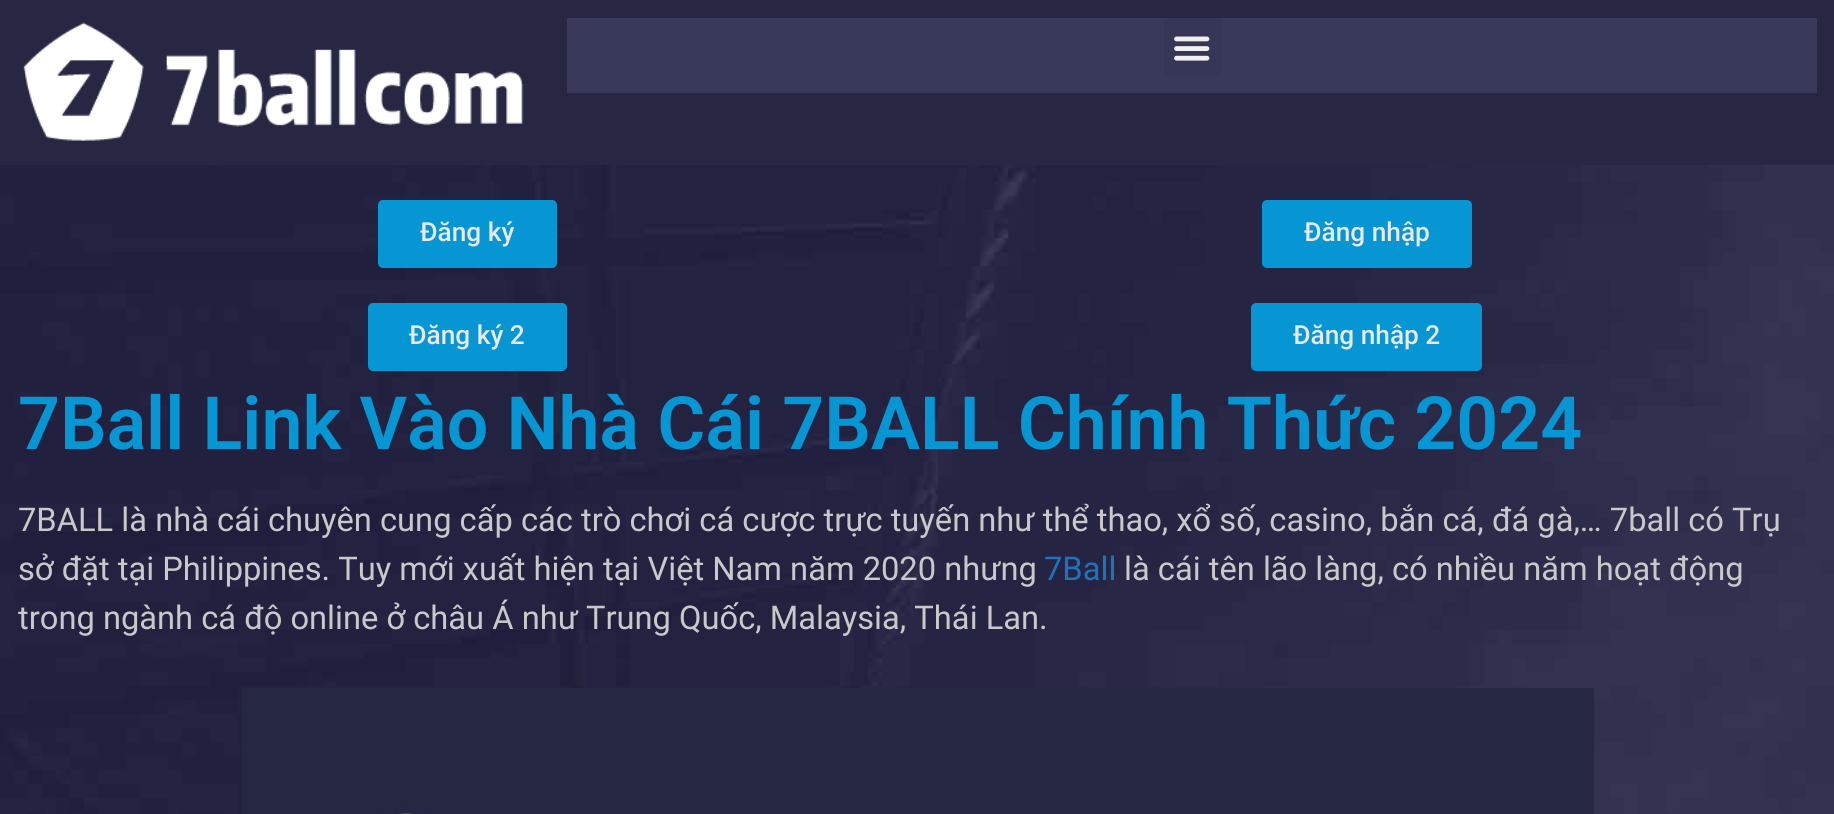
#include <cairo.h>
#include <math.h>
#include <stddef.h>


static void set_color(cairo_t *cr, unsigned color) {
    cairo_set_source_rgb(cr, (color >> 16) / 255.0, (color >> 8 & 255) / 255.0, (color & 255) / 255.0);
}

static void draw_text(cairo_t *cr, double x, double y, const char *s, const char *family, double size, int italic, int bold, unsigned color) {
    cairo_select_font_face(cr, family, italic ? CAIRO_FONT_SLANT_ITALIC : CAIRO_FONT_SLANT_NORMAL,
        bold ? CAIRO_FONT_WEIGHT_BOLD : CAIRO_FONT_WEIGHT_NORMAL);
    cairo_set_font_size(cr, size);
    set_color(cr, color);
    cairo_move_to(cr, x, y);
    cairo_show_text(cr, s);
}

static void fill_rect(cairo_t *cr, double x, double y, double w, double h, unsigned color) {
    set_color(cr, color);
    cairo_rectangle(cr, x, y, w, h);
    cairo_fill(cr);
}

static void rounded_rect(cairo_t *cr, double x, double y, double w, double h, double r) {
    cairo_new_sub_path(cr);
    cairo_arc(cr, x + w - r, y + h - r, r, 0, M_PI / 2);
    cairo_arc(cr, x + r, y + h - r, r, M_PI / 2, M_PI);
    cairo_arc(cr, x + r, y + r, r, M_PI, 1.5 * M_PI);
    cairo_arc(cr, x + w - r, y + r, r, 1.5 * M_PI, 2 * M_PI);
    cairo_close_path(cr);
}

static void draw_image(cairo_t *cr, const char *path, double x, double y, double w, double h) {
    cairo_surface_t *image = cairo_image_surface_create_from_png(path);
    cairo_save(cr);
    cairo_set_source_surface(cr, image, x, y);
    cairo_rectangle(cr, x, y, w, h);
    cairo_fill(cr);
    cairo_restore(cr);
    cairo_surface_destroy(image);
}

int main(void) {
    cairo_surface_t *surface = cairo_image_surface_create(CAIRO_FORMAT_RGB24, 1834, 814);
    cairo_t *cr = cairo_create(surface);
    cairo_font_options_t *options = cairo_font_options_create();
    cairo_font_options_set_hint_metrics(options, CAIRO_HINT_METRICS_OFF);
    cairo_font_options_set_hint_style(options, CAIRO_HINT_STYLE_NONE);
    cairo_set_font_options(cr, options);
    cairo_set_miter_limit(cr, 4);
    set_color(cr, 0xFFFFFF);
    cairo_paint(cr);
    draw_image(cr, "assets/img1.png", 0, 165, 1834, 649);
    fill_rect(cr, 0, 0, 1834, 165, 0x272743);
    draw_image(cr, "assets/img2.png", 23, 22, 501, 119);
    fill_rect(cr, 567, 18, 1250, 75, 0x39395A);
    set_color(cr, 0x363656);
    rounded_rect(cr, 1164, 18, 58, 57, 5);
    cairo_fill(cr);
    draw_image(cr, "assets/img3.png", 1174, 36, 36, 25);
    set_color(cr, 0x0596D3);
    rounded_rect(cr, 378, 200, 179, 68, 5);
    cairo_fill(cr);
    draw_text(cr, 420, 241, "Đăng ký", "Roboto Medium", 26.25, 0, 0, 0xE9E9E9);
    set_color(cr, 0x0596D3);
    rounded_rect(cr, 1262, 200, 210, 68, 5);
    cairo_fill(cr);
    draw_text(cr, 1304, 241, "Đăng nhập", "Roboto Medium", 26.25, 0, 0, 0xE9E9E9);
    set_color(cr, 0x0596D3);
    rounded_rect(cr, 368, 303, 199, 68, 5);
    cairo_fill(cr);
    draw_text(cr, 409, 344, "Đăng ký 2", "Roboto Medium", 26.25, 0, 0, 0xE9E9E9);
    set_color(cr, 0x0596D3);
    rounded_rect(cr, 1251, 303, 231, 68, 5);
    cairo_fill(cr);
    draw_text(cr, 1293, 344, "Đăng nhập 2", "Roboto Medium", 26.25, 0, 0, 0xE9E9E9);
    draw_text(cr, 18, 449, "7Ball Link Vào Nhà Cái 7BALL Chính Thức 2024", "Roboto SemiBold", 73.5, 0, 0, 0x0596D3);
    draw_text(cr, 18, 531, "7BALL là nhà cái chuyên cung cấp các trò chơi cá cược trực tuyến như thể thao, xổ số, casino, bắn cá, đá gà,… 7ball có Trụ", "Roboto", 32.67, 0, 0, 0xC9C9C9);
    draw_text(cr, 18, 580, "sở đặt tại Philippines. Tuy mới xuất hiện tại Việt Nam năm 2020 nhưng", "Roboto", 32.67, 0, 0, 0xC9C9C9);
    draw_text(cr, 1044, 580, "7Ball", "Roboto", 32.67, 0, 0, 0x1E73BE);
    draw_text(cr, 1124, 580, "là cái tên lão làng, có nhiều năm hoạt động", "Roboto", 32.67, 0, 0, 0xC9C9C9);
    draw_text(cr, 18, 629, "trong ngành cá độ online ở châu Á như Trung Quốc, Malaysia, Thái Lan.", "Roboto", 32.67, 0, 0, 0xC9C9C9);
    draw_image(cr, "assets/img4.png", 242, 688, 1352, 126);
    cairo_surface_write_to_png(surface, "output.png");
    cairo_font_options_destroy(options);
    cairo_destroy(cr);
    cairo_surface_destroy(surface);
    return 0;
}
